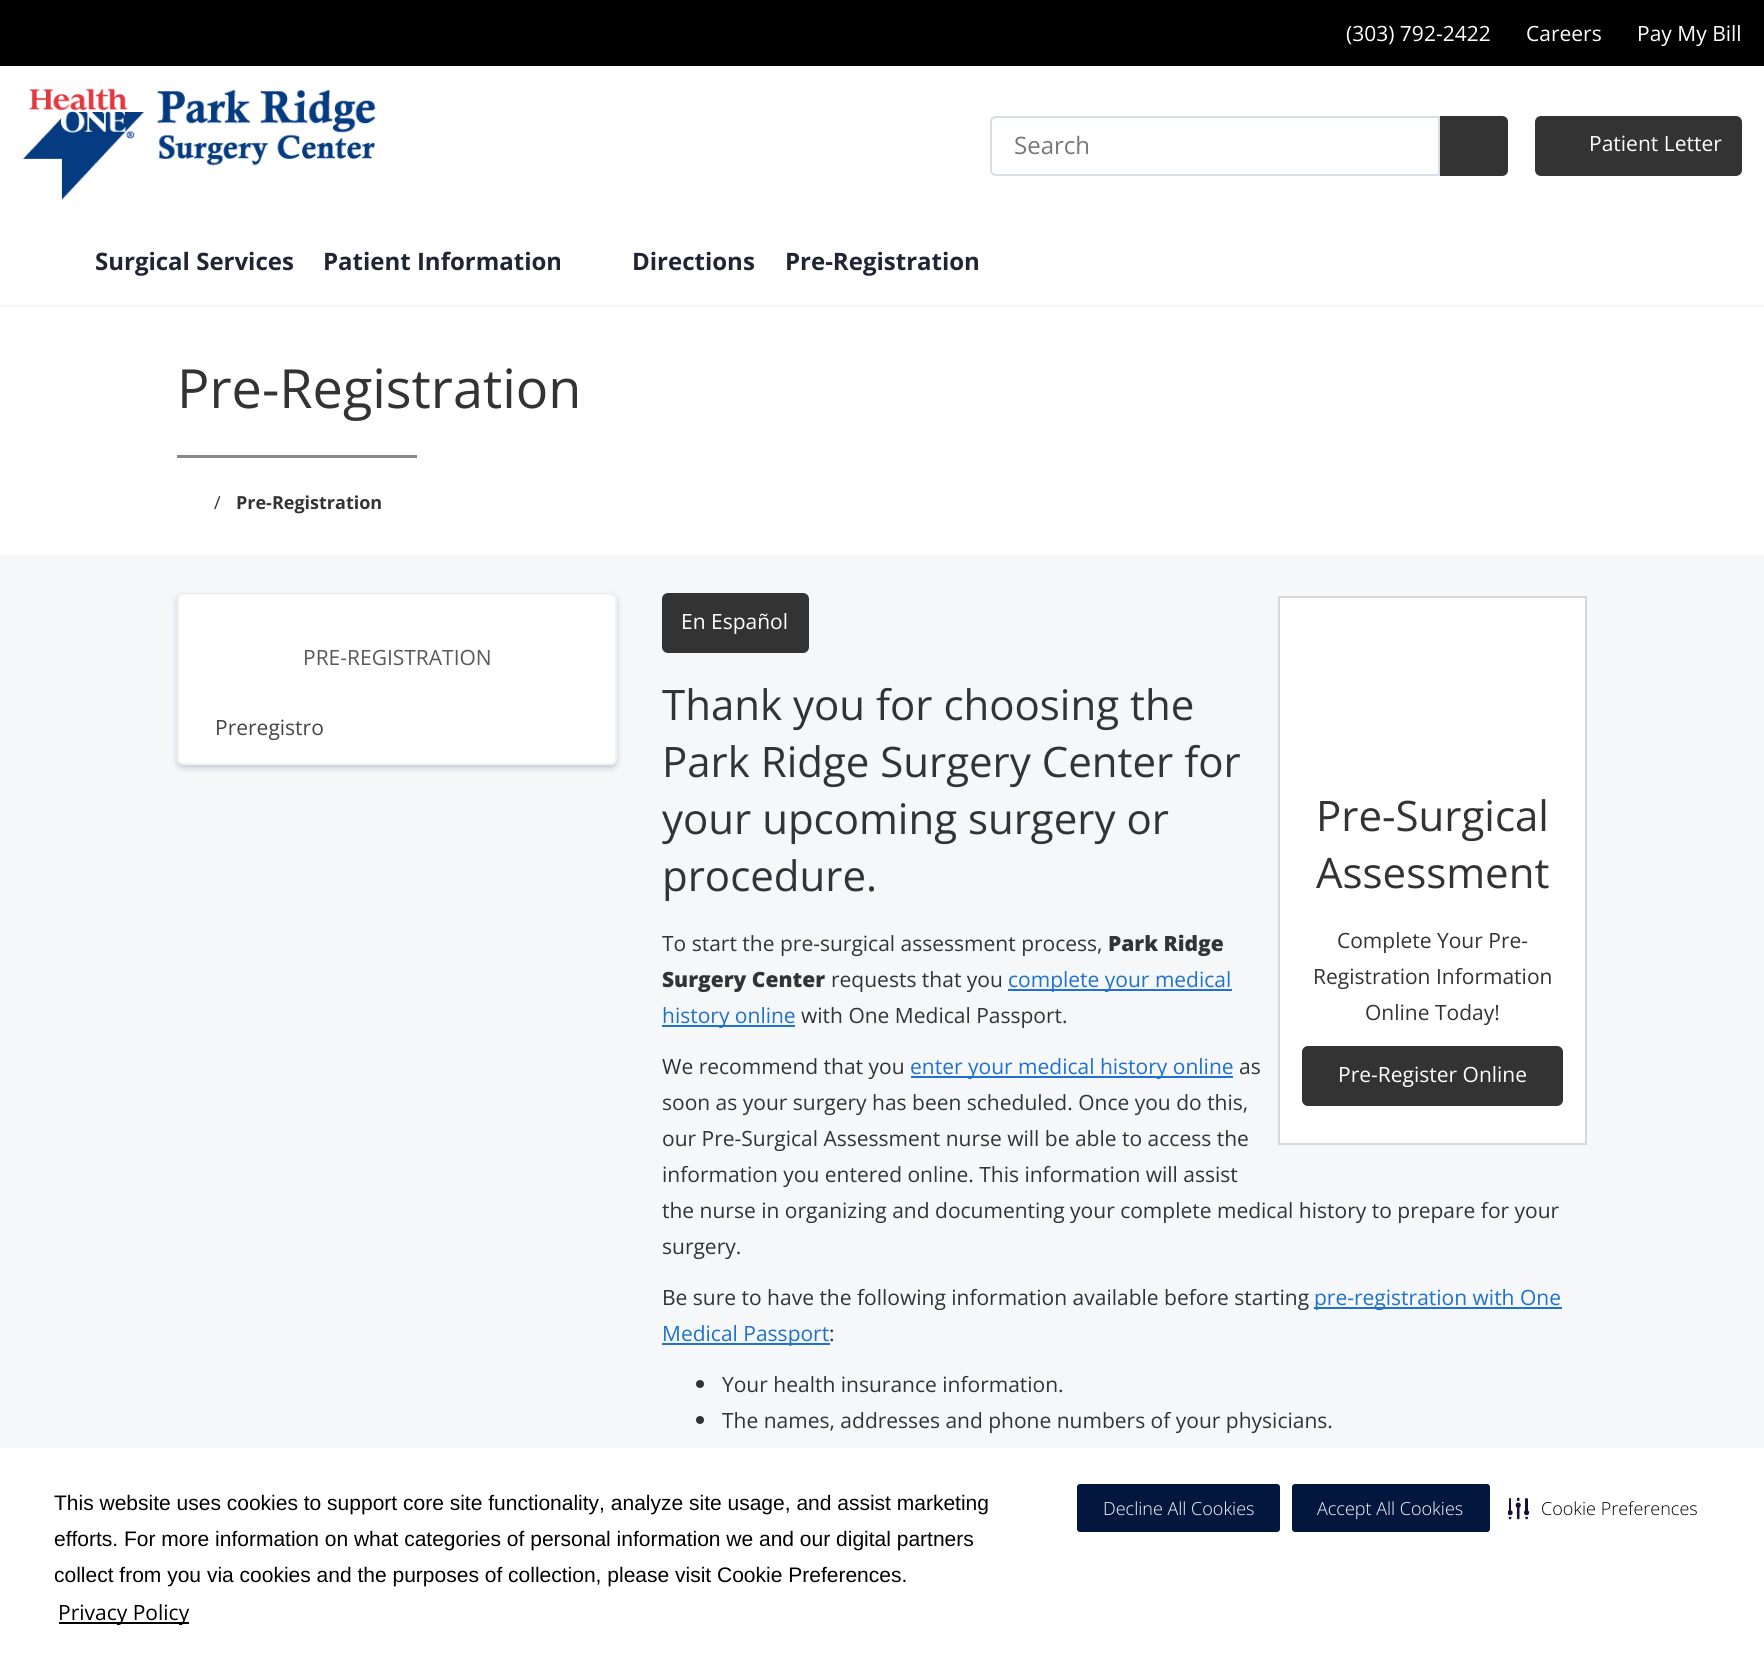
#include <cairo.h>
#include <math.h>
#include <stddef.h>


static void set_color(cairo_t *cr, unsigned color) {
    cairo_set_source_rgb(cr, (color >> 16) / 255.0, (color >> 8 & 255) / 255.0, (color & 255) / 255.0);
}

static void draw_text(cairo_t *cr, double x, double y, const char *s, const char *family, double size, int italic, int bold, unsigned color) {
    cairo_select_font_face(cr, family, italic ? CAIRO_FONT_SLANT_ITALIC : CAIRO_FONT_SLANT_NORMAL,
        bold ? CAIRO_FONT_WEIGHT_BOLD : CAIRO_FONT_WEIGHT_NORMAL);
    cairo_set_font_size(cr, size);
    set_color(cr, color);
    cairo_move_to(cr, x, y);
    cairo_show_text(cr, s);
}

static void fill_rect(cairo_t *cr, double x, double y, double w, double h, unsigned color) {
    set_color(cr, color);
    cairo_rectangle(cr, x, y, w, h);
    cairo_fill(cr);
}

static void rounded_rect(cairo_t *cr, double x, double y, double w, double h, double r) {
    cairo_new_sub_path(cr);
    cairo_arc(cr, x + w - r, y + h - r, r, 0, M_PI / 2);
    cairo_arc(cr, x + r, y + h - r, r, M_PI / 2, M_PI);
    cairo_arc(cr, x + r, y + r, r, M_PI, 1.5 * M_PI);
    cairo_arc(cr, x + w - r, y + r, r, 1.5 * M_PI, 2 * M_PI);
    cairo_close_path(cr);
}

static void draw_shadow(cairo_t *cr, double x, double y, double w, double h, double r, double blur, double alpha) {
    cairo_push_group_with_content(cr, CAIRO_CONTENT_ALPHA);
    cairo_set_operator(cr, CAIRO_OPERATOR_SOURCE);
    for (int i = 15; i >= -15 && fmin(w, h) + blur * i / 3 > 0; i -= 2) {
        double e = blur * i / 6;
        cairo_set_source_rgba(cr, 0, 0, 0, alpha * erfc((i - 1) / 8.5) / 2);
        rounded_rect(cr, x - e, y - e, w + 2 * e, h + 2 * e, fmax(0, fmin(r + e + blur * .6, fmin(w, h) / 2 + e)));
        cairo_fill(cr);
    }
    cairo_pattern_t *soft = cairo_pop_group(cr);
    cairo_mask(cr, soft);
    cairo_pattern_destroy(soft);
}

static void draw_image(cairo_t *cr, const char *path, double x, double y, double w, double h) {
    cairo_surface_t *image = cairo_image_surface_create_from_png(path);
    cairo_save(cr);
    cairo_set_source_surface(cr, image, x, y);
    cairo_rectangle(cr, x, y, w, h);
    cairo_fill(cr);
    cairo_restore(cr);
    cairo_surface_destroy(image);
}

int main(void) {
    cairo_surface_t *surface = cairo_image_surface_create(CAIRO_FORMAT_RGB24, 1764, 1668);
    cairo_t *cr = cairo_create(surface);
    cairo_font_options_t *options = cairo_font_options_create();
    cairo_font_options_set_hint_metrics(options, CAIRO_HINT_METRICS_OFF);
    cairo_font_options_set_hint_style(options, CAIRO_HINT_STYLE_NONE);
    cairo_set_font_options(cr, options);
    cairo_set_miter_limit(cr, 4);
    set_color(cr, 0xF5F7F9);
    cairo_paint(cr);
    fill_rect(cr, 0, 66, 1764, 239, 0xFFFFFF);
    fill_rect(cr, 0, 0, 1764, 66, 0x000000);
    draw_text(cr, 1346, 41, "(303) 792-2422", "Open Sans", 21, 0, 0, 0xFFFFFF);
    draw_text(cr, 1526, 41, "Careers", "Open Sans", 21, 0, 0, 0xFFFFFF);
    draw_text(cr, 1637, 41, "Pay My Bill", "Open Sans", 21, 0, 0, 0xFFFFFF);
    draw_image(cr, "assets/img1.png", 23, 88, 353, 112);
    set_color(cr, 0x333333);
    cairo_new_path(cr);
    cairo_move_to(cr, 1440, 117);
    cairo_line_to(cr, 1502, 117);
    cairo_curve_to(cr, 1505, 117, 1507, 119, 1507, 122);
    cairo_line_to(cr, 1507, 170);
    cairo_curve_to(cr, 1507, 173, 1505, 175, 1502, 175);
    cairo_line_to(cr, 1440, 175);
    cairo_close_path(cr);
    cairo_fill_preserve(cr);
    cairo_stroke(cr);
    set_color(cr, 0xFFFFFF);
    cairo_new_path(cr);
    cairo_move_to(cr, 996, 117);
    cairo_line_to(cr, 1439, 117);
    cairo_line_to(cr, 1439, 175);
    cairo_line_to(cr, 996, 175);
    cairo_curve_to(cr, 993, 175, 991, 173, 991, 170);
    cairo_line_to(cr, 991, 122);
    cairo_curve_to(cr, 991, 119, 993, 117, 996, 117);
    cairo_close_path(cr);
    cairo_fill_preserve(cr);
    set_color(cr, 0xD8DDE6);
    cairo_stroke(cr);
    draw_text(cr, 1014, 154, "Search", "Open Sans", 24, 0, 0, 0x777777);
    set_color(cr, 0x333333);
    rounded_rect(cr, 1536, 117, 205, 58, 5);
    cairo_fill_preserve(cr);
    cairo_stroke(cr);
    draw_text(cr, 1589, 151, "Patient Letter", "Open Sans", 21, 0, 0, 0xFFFFFF);
    fill_rect(cr, 0, 305, 1764, 2, 0xF5F3F3);
    draw_text(cr, 95, 270, "Surgical Services", "Open Sans", 24, 0, 1, 0x1F2532);
    draw_text(cr, 323, 270, "Patient Information", "Open Sans", 24, 0, 1, 0x1F2532);
    draw_text(cr, 632, 270, "Directions", "Open Sans", 24, 0, 1, 0x1F2532);
    draw_text(cr, 785, 270, "Pre-Registration", "Open Sans", 24, 0, 1, 0x1F2532);
    fill_rect(cr, 0, 307, 1764, 248, 0xFFFFFF);
    draw_text(cr, 177, 408, "Pre-Registration", "Open Sans", 54, 0, 0, 0x333333);
    fill_rect(cr, 177, 455, 240, 3, 0x888888);
    draw_text(cr, 214, 509, "/", "Open Sans", 18, 0, 0, 0x333333);
    draw_text(cr, 236, 509, "Pre-Registration", "Open Sans", 18, 0, 1, 0x333333);
    set_color(cr, 0x061C3F);
    draw_shadow(cr, 177, 596, 440, 172, 6, 3, 0.2);
    set_color(cr, 0xFFFFFF);
    rounded_rect(cr, 178, 594, 438, 170, 5);
    cairo_fill_preserve(cr);
    set_color(cr, 0xF1F1F1);
    cairo_stroke(cr);
    draw_text(cr, 303, 665, "PRE-REGISTRATION", "Open Sans", 21, 0, 0, 0x58595B);
    draw_text(cr, 215, 735, "Preregistro", "Open Sans", 21, 0, 0, 0x454545);
    set_color(cr, 0x333333);
    rounded_rect(cr, 663, 594, 145, 58, 5);
    cairo_fill_preserve(cr);
    cairo_stroke(cr);
    draw_text(cr, 681, 629, "En Español", "Open Sans", 21, 0, 0, 0xFFFFFF);
    draw_text(cr, 662, 720, "Thank you for choosing the", "Open Sans", 42, 0, 0, 0x333333);
    draw_text(cr, 662, 777, "Park Ridge Surgery Center for", "Open Sans", 42, 0, 0, 0x333333);
    draw_text(cr, 662, 834, "your upcoming surgery or", "Open Sans", 42, 0, 0, 0x333333);
    draw_text(cr, 662, 891, "procedure.", "Open Sans", 42, 0, 0, 0x333333);
    set_color(cr, 0xFFFFFF);
    cairo_rectangle(cr, 1279, 597, 307, 547);
    cairo_fill_preserve(cr);
    set_color(cr, 0xD7D7D7);
    cairo_stroke(cr);
    draw_text(cr, 1316, 831, "Pre-Surgical", "Open Sans", 42, 0, 0, 0x333333);
    draw_text(cr, 1316, 888, "Assessment", "Open Sans", 42, 0, 0, 0x333333);
    draw_text(cr, 1337, 948, "Complete Your Pre-", "Open Sans", 21, 0, 0, 0x333333);
    draw_text(cr, 1313, 984, "Registration Information", "Open Sans", 21, 0, 0, 0x333333);
    draw_text(cr, 1365, 1020, "Online Today!", "Open Sans", 21, 0, 0, 0x333333);
    rounded_rect(cr, 1303, 1047, 259, 58, 5);
    cairo_fill_preserve(cr);
    cairo_stroke(cr);
    draw_text(cr, 1338, 1082, "Pre-Register Online", "Open Sans", 21, 0, 0, 0xFFFFFF);
    draw_text(cr, 662, 951, "To start the pre-surgical assessment process,", "Open Sans", 21, 0, 0, 0x333333);
    draw_text(cr, 1108, 951, "Park Ridge", "Open Sans ExtraBold", 21, 0, 0, 0x333333);
    draw_text(cr, 662, 987, "Surgery Center", "Open Sans ExtraBold", 21, 0, 0, 0x333333);
    draw_text(cr, 831, 987, "requests that you", "Open Sans", 21, 0, 0, 0x333333);
    fill_rect(cr, 1008, 989, 224, 2, 0x1E71CD);
    draw_text(cr, 1008, 987, "complete your medical", "Open Sans", 21, 0, 0, 0x1E71CD);
    fill_rect(cr, 662, 1025, 133, 2, 0x1E71CD);
    draw_text(cr, 662, 1023, "history online", "Open Sans", 21, 0, 0, 0x1E71CD);
    draw_text(cr, 801, 1023, "with One Medical Passport.", "Open Sans", 21, 0, 0, 0x333333);
    draw_text(cr, 662, 1074, "We recommend that you", "Open Sans", 21, 0, 0, 0x333333);
    fill_rect(cr, 911, 1076, 322, 2, 0x1E71CD);
    draw_text(cr, 910, 1074, "enter your medical history online", "Open Sans", 21, 0, 0, 0x1E71CD);
    draw_text(cr, 1239, 1074, "as", "Open Sans", 21, 0, 0, 0x333333);
    draw_text(cr, 662, 1110, "soon as your surgery has been scheduled. Once you do this,", "Open Sans", 21, 0, 0, 0x333333);
    draw_text(cr, 662, 1146, "our Pre-Surgical Assessment nurse will be able to access the", "Open Sans", 21, 0, 0, 0x333333);
    draw_text(cr, 662, 1182, "information you entered online. This information will assist", "Open Sans", 21, 0, 0, 0x333333);
    draw_text(cr, 662, 1218, "the nurse in organizing and documenting your complete medical history to prepare for your", "Open Sans", 21, 0, 0, 0x333333);
    draw_text(cr, 662, 1254, "surgery.", "Open Sans", 21, 0, 0, 0x333333);
    draw_text(cr, 662, 1305, "Be sure to have the following information available before starting", "Open Sans", 21, 0, 0, 0x333333);
    fill_rect(cr, 1314, 1307, 248, 2, 0x1E71CD);
    draw_text(cr, 1314, 1305, "pre-registration with One", "Open Sans", 21, 0, 0, 0x1E71CD);
    fill_rect(cr, 662, 1343, 168, 2, 0x1E71CD);
    draw_text(cr, 662, 1341, "Medical Passport", "Open Sans", 21, 0, 0, 0x1E71CD);
    draw_text(cr, 829, 1341, ":", "Open Sans", 21, 0, 0, 0x333333);
    cairo_new_path(cr);
    cairo_arc(cr, 700, 1384, 4, 0, 2 * M_PI);
    cairo_fill(cr);
    draw_text(cr, 722, 1392, "Your health insurance information.", "Open Sans", 21, 0, 0, 0x333333);
    cairo_new_path(cr);
    cairo_arc(cr, 700, 1420, 4, 0, 2 * M_PI);
    cairo_fill(cr);
    draw_text(cr, 722, 1428, "The names, addresses and phone numbers of your physicians.", "Open Sans", 21, 0, 0, 0x333333);
    fill_rect(cr, 0, 1448, 1764, 220, 0xFFFFFF);
    draw_text(cr, 54, 1510, "This website uses cookies to support core site functionality, analyze site usage, and assist marketing", "Liberation Sans", 21, 0, 0, 0x000000);
    draw_text(cr, 54, 1546, "efforts. For more information on what categories of personal information we and our digital partners", "Liberation Sans", 21, 0, 0, 0x000000);
    draw_text(cr, 54, 1582, "collect from you via cookies and the purposes of collection, please visit Cookie Preferences.", "Liberation Sans", 21, 0, 0, 0x000000);
    fill_rect(cr, 59, 1622, 130, 2, 0x000000);
    draw_text(cr, 58, 1620, "Privacy Policy", "Open Sans", 21, 0, 0, 0x000000);
    set_color(cr, 0x03173E);
    rounded_rect(cr, 1078, 1485, 201, 46, 2);
    cairo_fill_preserve(cr);
    cairo_stroke(cr);
    draw_text(cr, 1103, 1515, "Decline All Cookies", "Open Sans Light", 18, 0, 0, 0xFFFFFF);
    set_color(cr, 0x03173E);
    rounded_rect(cr, 1293, 1485, 196, 46, 2);
    cairo_fill_preserve(cr);
    cairo_stroke(cr);
    draw_text(cr, 1317, 1515, "Accept All Cookies", "Open Sans Light", 18, 0, 0, 0xFFFFFF);
    draw_image(cr, "assets/img2.png", 1508, 1497, 22, 23);
    draw_text(cr, 1541, 1515, "Cookie Preferences", "Open Sans Light", 18, 0, 0, 0x000000);
    cairo_surface_write_to_png(surface, "output.png");
    cairo_font_options_destroy(options);
    cairo_destroy(cr);
    cairo_surface_destroy(surface);
    return 0;
}
